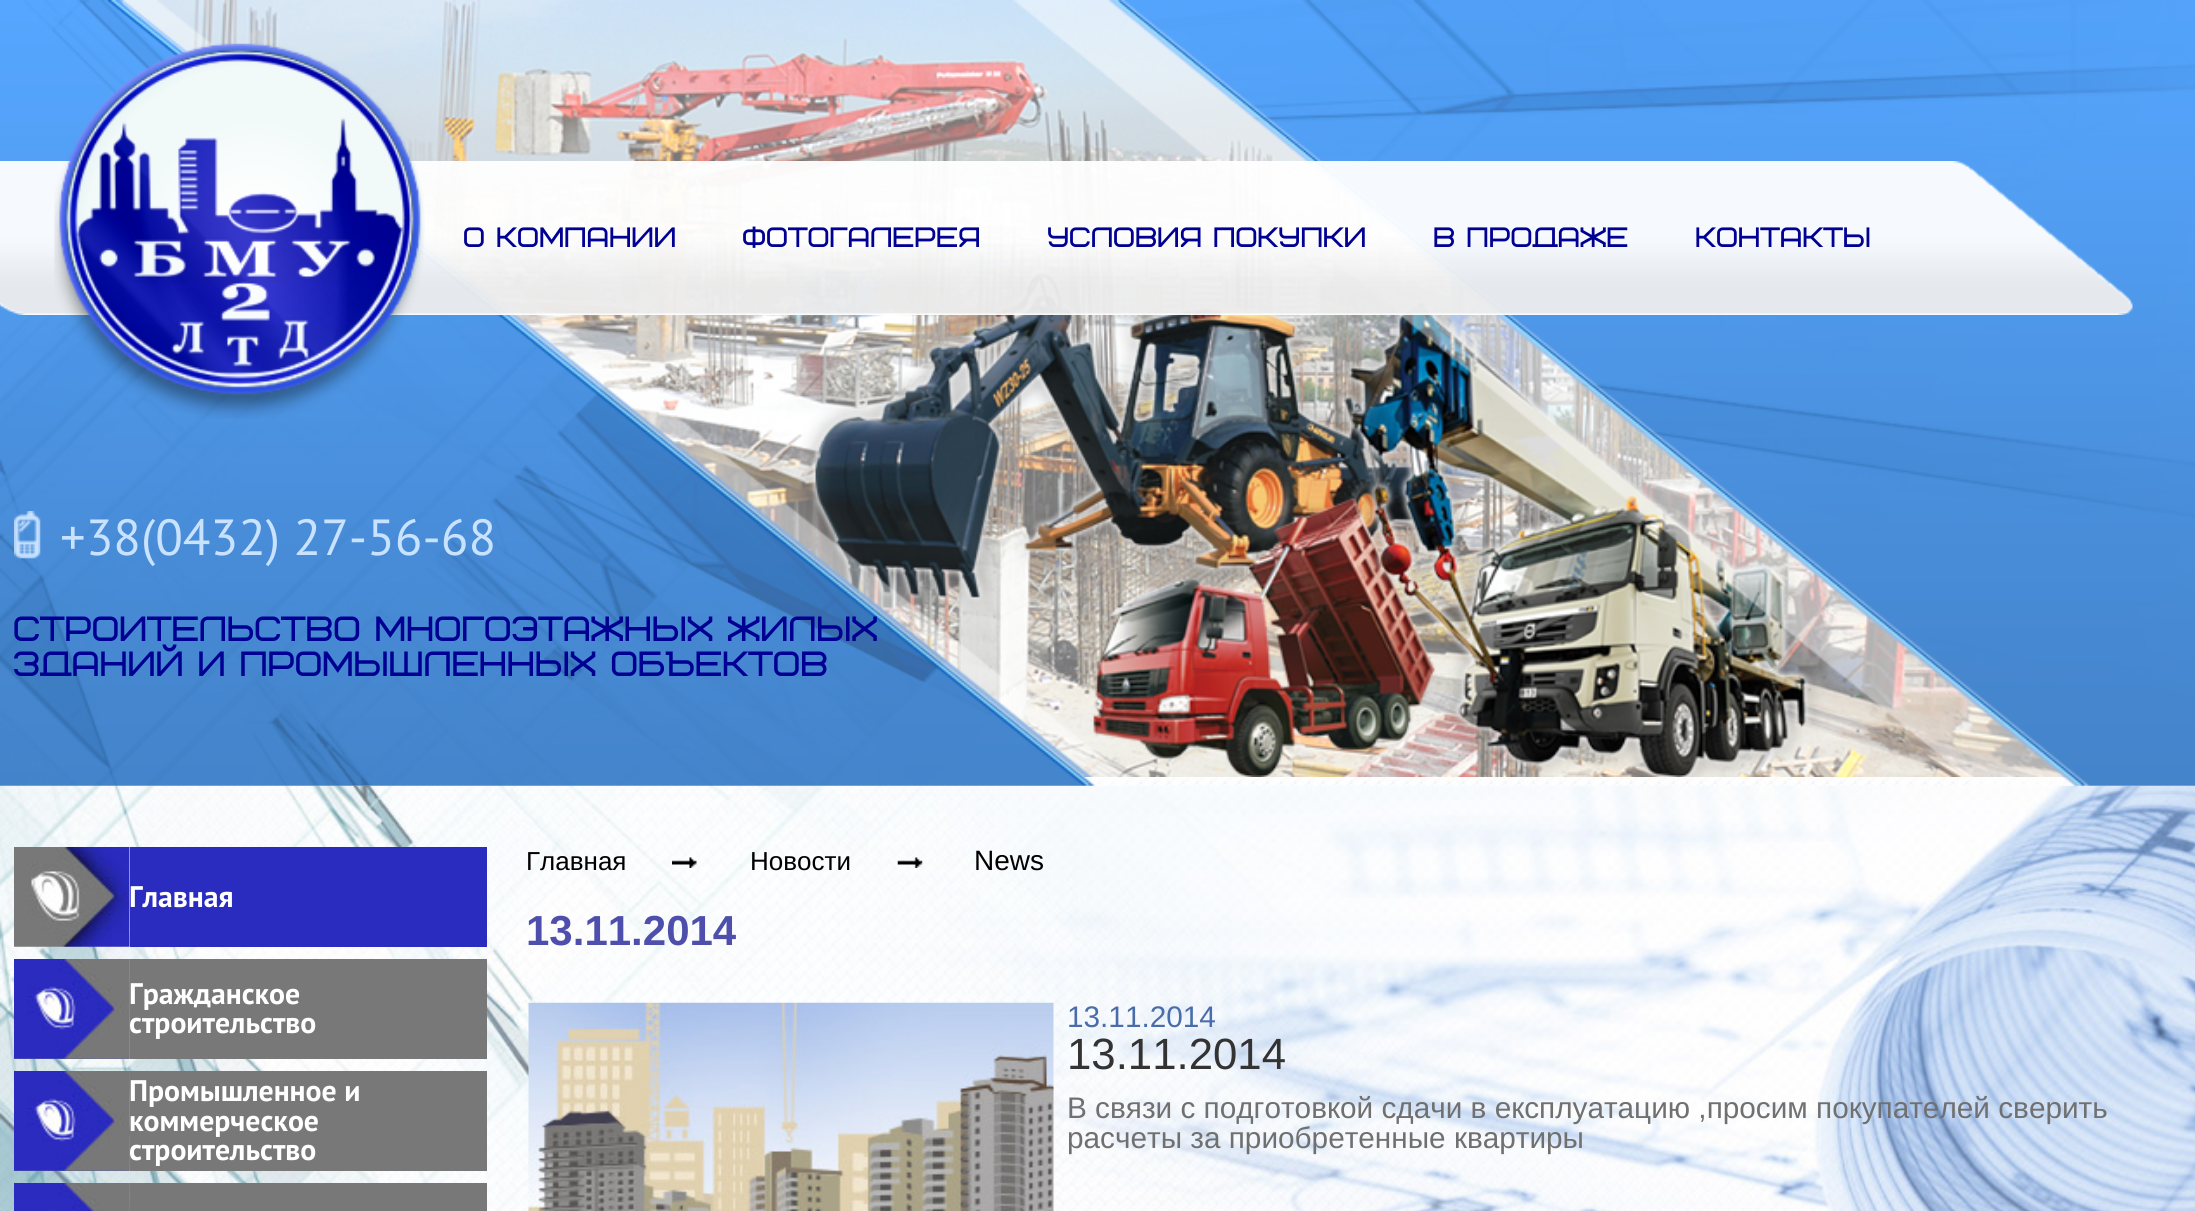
#include <cairo.h>
#include <math.h>
#include <stddef.h>


static void set_color(cairo_t *cr, unsigned color) {
    cairo_set_source_rgb(cr, (color >> 16) / 255.0, (color >> 8 & 255) / 255.0, (color & 255) / 255.0);
}

static void draw_text(cairo_t *cr, double x, double y, const char *s, const char *family, double size, int italic, int bold, unsigned color) {
    cairo_select_font_face(cr, family, italic ? CAIRO_FONT_SLANT_ITALIC : CAIRO_FONT_SLANT_NORMAL,
        bold ? CAIRO_FONT_WEIGHT_BOLD : CAIRO_FONT_WEIGHT_NORMAL);
    cairo_set_font_size(cr, size);
    set_color(cr, color);
    cairo_move_to(cr, x, y);
    cairo_show_text(cr, s);
}

static void fill_rect(cairo_t *cr, double x, double y, double w, double h, unsigned color) {
    set_color(cr, color);
    cairo_rectangle(cr, x, y, w, h);
    cairo_fill(cr);
}

static void draw_image(cairo_t *cr, const char *path, double x, double y, double w, double h) {
    cairo_surface_t *image = cairo_image_surface_create_from_png(path);
    cairo_save(cr);
    cairo_set_source_surface(cr, image, x, y);
    cairo_rectangle(cr, x, y, w, h);
    cairo_fill(cr);
    cairo_restore(cr);
    cairo_surface_destroy(image);
}

int main(void) {
    cairo_surface_t *surface = cairo_image_surface_create(CAIRO_FORMAT_RGB24, 2195, 1211);
    cairo_t *cr = cairo_create(surface);
    cairo_font_options_t *options = cairo_font_options_create();
    cairo_font_options_set_hint_metrics(options, CAIRO_HINT_METRICS_OFF);
    cairo_font_options_set_hint_style(options, CAIRO_HINT_STYLE_NONE);
    cairo_set_font_options(cr, options);
    cairo_set_miter_limit(cr, 4);
    set_color(cr, 0xFFFFFF);
    cairo_paint(cr);
    draw_image(cr, "assets/img1.png", 0, 777, 2194, 9);
    fill_rect(cr, 118, 0, 5, 6, 0x4C94E3);
    draw_image(cr, "assets/img2.png", 122, 0, 971, 777);
    draw_image(cr, "assets/img3.png", 122, 0, 1946, 777);
    draw_image(cr, "assets/img8.png", 0, 785, 2195, 426);
    draw_image(cr, "assets/img4.png", 0, 0, 2195, 786);
    draw_image(cr, "assets/img5.png", 0, 161, 2133, 154);
    draw_image(cr, "assets/img6.png", 54, 43, 371, 376);
    draw_text(cr, 463, 247, "О КОМПАНИИ", "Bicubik", 28, 0, 0, 0x000093);
    draw_text(cr, 742, 247, "ФОТОГАЛЕРЕЯ", "Bicubik", 28, 0, 0, 0x000093);
    draw_text(cr, 1047, 247, "УСЛОВИЯ ПОКУПКИ", "Bicubik", 28, 0, 0, 0x000093);
    draw_text(cr, 1433, 247, "В ПРОДАЖЕ", "Bicubik", 28, 0, 0, 0x000093);
    draw_text(cr, 1695, 247, "КОНТАКТЫ", "Bicubik", 28, 0, 0, 0x000093);
    draw_image(cr, "assets/img7.png", 14, 511, 27, 48);
    draw_text(cr, 60, 555, "+38(0432) 27-56-68", "PT Sans", 50.75, 0, 0, 0xC8E2FF);
    draw_text(cr, 13, 641, "СТРОИТЕЛЬСТВО МНОГОЭТАЖНЫХ ЖИЛЫХ", "Bicubik", 35, 0, 0, 0x000093);
    draw_text(cr, 13, 676, "ЗДАНИЙ И ПРОМЫШЛЕННЫХ ОБЪЕКТОВ", "Bicubik", 35, 0, 0, 0x000093);
    draw_image(cr, "assets/img9.png", 14, 847, 116, 100);
    fill_rect(cr, 130, 847, 357, 100, 0x2A2BBF);
    draw_text(cr, 129, 907, "Главная", "PT Sans", 29.75, 0, 1, 0xFFFFFF);
    fill_rect(cr, 130, 959, 357, 100, 0x787878);
    draw_text(cr, 129, 1033, "строительство", "PT Sans", 29.75, 0, 1, 0xFFFFFF);
    draw_image(cr, "assets/img10.png", 14, 959, 116, 100);
    draw_image(cr, "assets/img11.png", 14, 959, 116, 100);
    draw_text(cr, 129, 1004, "Гражданское", "PT Sans", 29.75, 0, 1, 0xFFFFFF);
    fill_rect(cr, 130, 1071, 357, 100, 0x787878);
    draw_text(cr, 129, 1160, "строительство", "PT Sans", 29.75, 0, 1, 0xFFFFFF);
    draw_image(cr, "assets/img12.png", 14, 1071, 116, 100);
    draw_image(cr, "assets/img13.png", 14, 1071, 116, 100);
    draw_text(cr, 129, 1101, "Промышленное и", "PT Sans", 29.75, 0, 1, 0xFFFFFF);
    draw_text(cr, 129, 1131, "коммерческое", "PT Sans", 29.75, 0, 1, 0xFFFFFF);
    draw_image(cr, "assets/img15.png", 129, 1183, 1, 28);
    draw_image(cr, "assets/img14.png", 14, 1183, 116, 28);
    fill_rect(cr, 130, 1183, 357, 28, 0x787878);
    draw_image(cr, "assets/img16.png", 672, 857, 25, 11);
    draw_text(cr, 526, 870, "Главная", "Liberation Sans", 26, 0, 0, 0x000000);
    draw_image(cr, "assets/img17.png", 897, 857, 26, 11);
    draw_text(cr, 750, 870, "Новости", "Liberation Sans", 26, 0, 0, 0x000000);
    draw_text(cr, 974, 870, "News", "Liberation Sans", 28, 0, 0, 0x000000);
    draw_text(cr, 526, 945, "13.11.2014", "Liberation Sans", 42, 0, 1, 0x4E4EAC);
    draw_image(cr, "assets/img18.png", 528, 1002, 526, 209);
    draw_text(cr, 1067, 1027, "13.11.2014", "Liberation Sans", 29.75, 0, 0, 0x486DAA);
    draw_text(cr, 1067, 1069, "13.11.2014", "Liberation Sans", 43.75, 0, 0, 0x333333);
    draw_text(cr, 1067, 1118, "В связи с подготовкой сдачи в експлуатацию ,просим покупателей сверить", "Liberation Sans", 29.75, 0, 0, 0x707070);
    draw_text(cr, 1067, 1148, "расчеты за приобретенные квартиры", "Liberation Sans", 29.75, 0, 0, 0x707070);
    cairo_surface_write_to_png(surface, "output.png");
    cairo_font_options_destroy(options);
    cairo_destroy(cr);
    cairo_surface_destroy(surface);
    return 0;
}
